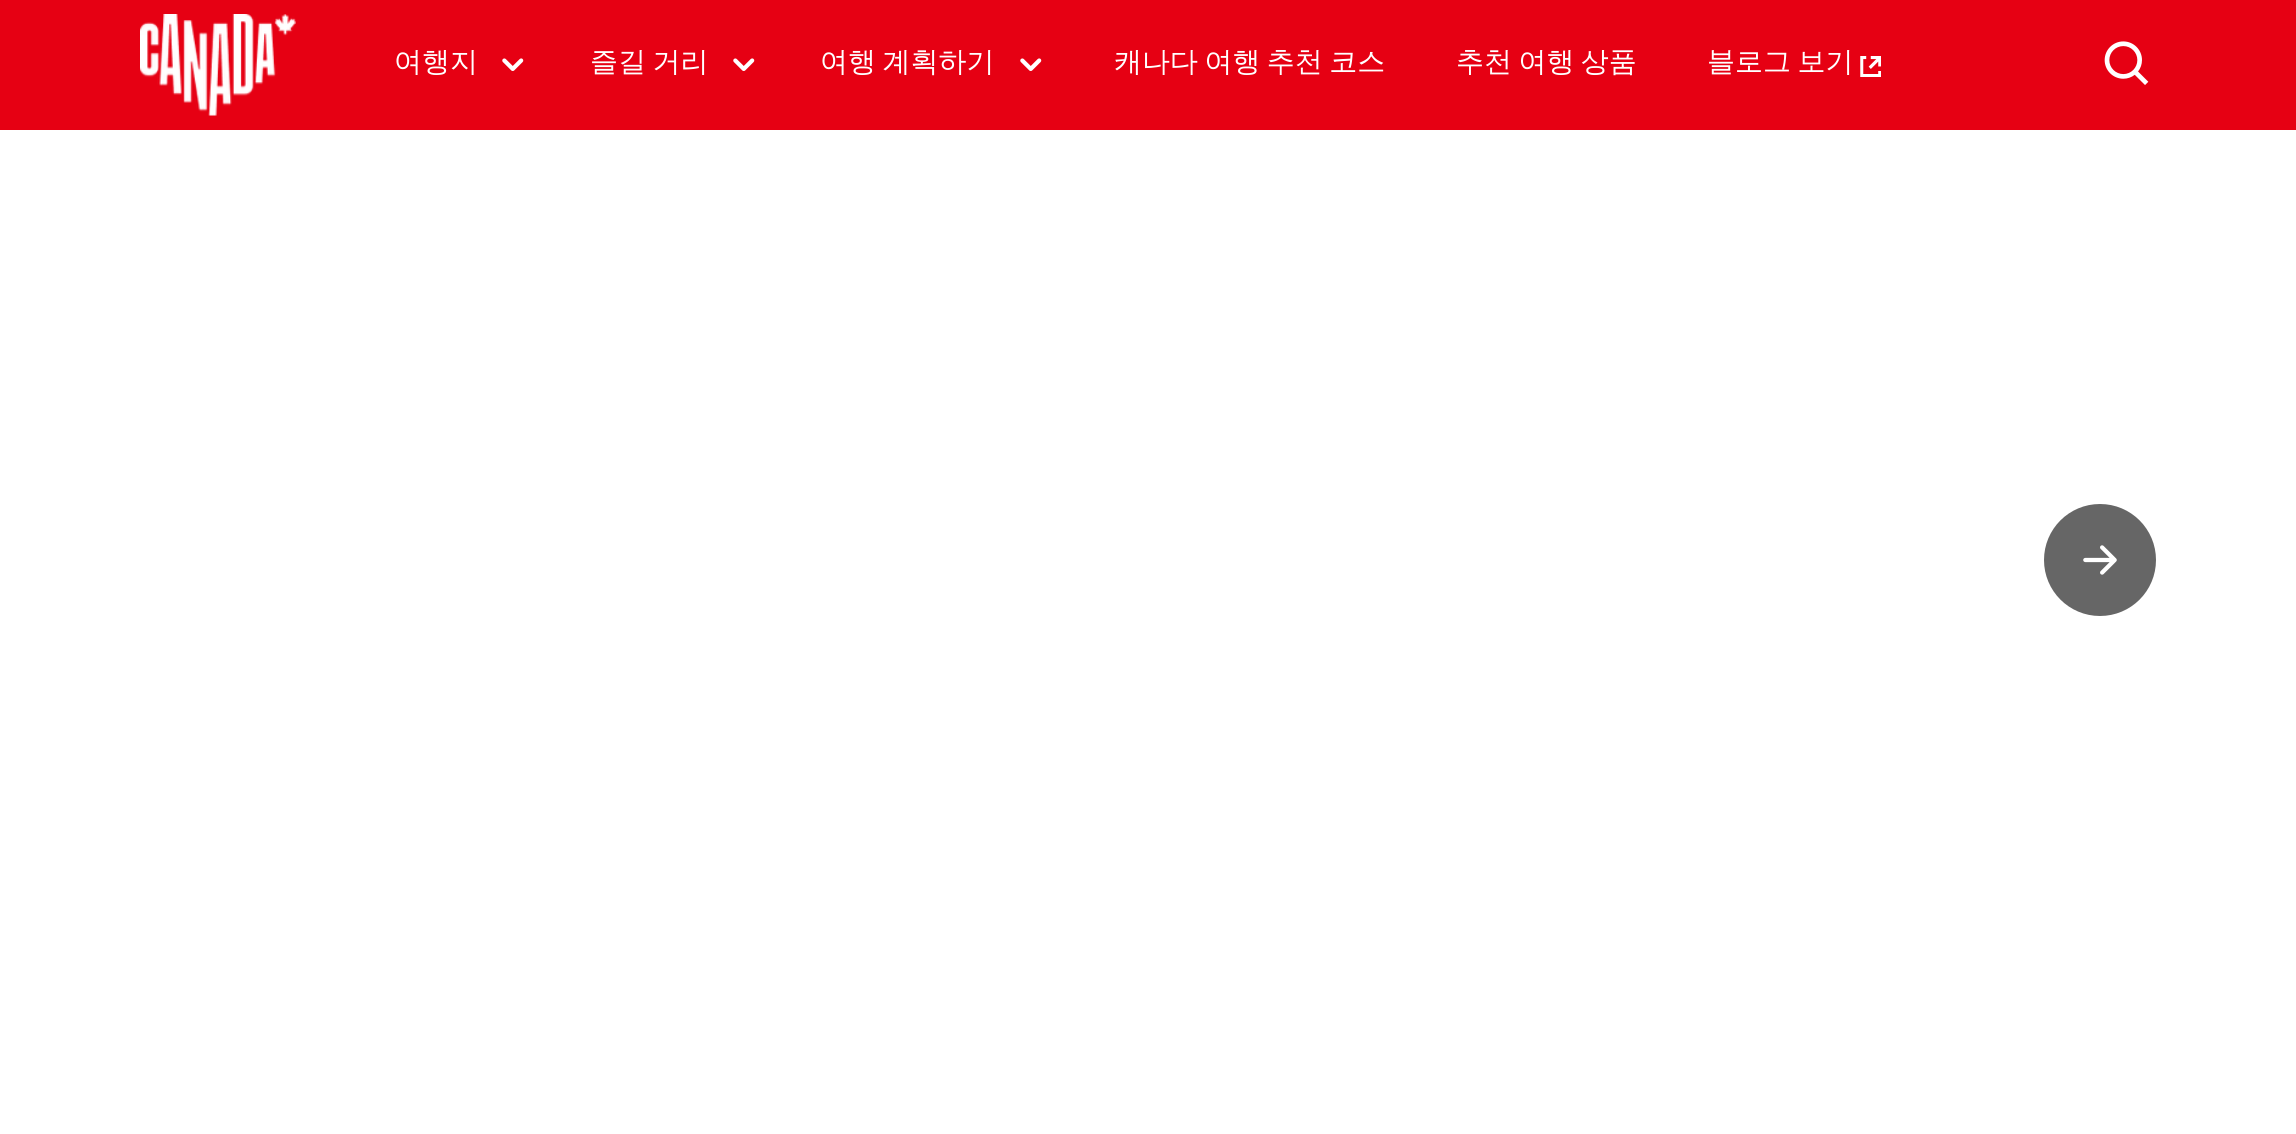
#include <cairo.h>
#include <math.h>
#include <stddef.h>


static void set_color(cairo_t *cr, unsigned color) {
    cairo_set_source_rgb(cr, (color >> 16) / 255.0, (color >> 8 & 255) / 255.0, (color & 255) / 255.0);
}

static void draw_text(cairo_t *cr, double x, double y, const char *s, const char *family, double size, int italic, int bold, unsigned color) {
    cairo_select_font_face(cr, family, italic ? CAIRO_FONT_SLANT_ITALIC : CAIRO_FONT_SLANT_NORMAL,
        bold ? CAIRO_FONT_WEIGHT_BOLD : CAIRO_FONT_WEIGHT_NORMAL);
    cairo_set_font_size(cr, size);
    set_color(cr, color);
    cairo_move_to(cr, x, y);
    cairo_show_text(cr, s);
}

static void draw_spaced(cairo_t *cr, double x, double y, const char *s, double letter, double word) {
    cairo_move_to(cr, x, y);
    while (*s) {
        char ch[5] = {0};
        int n = 0;
        do ch[n++] = *s++; while ((*s & 0xC0) == 0x80);
        cairo_show_text(cr, ch);
        cairo_rel_move_to(cr, letter + word * (*ch == ' '), 0);
    }
}

static void fill_rect(cairo_t *cr, double x, double y, double w, double h, unsigned color) {
    set_color(cr, color);
    cairo_rectangle(cr, x, y, w, h);
    cairo_fill(cr);
}

static void draw_image(cairo_t *cr, const char *path, double x, double y, double w, double h) {
    cairo_surface_t *image = cairo_image_surface_create_from_png(path);
    cairo_save(cr);
    cairo_set_source_surface(cr, image, x, y);
    cairo_rectangle(cr, x, y, w, h);
    cairo_fill(cr);
    cairo_restore(cr);
    cairo_surface_destroy(image);
}

int main(void) {
    cairo_surface_t *surface = cairo_image_surface_create(CAIRO_FORMAT_RGB24, 2296, 1134);
    cairo_t *cr = cairo_create(surface);
    cairo_font_options_t *options = cairo_font_options_create();
    cairo_font_options_set_hint_metrics(options, CAIRO_HINT_METRICS_OFF);
    cairo_font_options_set_hint_style(options, CAIRO_HINT_STYLE_NONE);
    cairo_set_font_options(cr, options);
    cairo_set_miter_limit(cr, 4);
    set_color(cr, 0xFFFFFF);
    cairo_paint(cr);
    fill_rect(cr, 0, 0, 2296, 130, 0xE60013);
    draw_image(cr, "assets/img1.png", 140, 14, 156, 102);
    draw_text(cr, 394, 71, "여행지", "WenQuanYi Zen Hei Medium", 28, 0, 0, 0xFFFFFF);
    draw_image(cr, "assets/img2.png", 502, 58, 22, 13);
    draw_spaced(cr, 590, 71, "즐길 거리", 0, -2);
    draw_image(cr, "assets/img2.png", 733, 58, 22, 13);
    draw_spaced(cr, 820, 71, "여행 계획하기", 0, -2);
    draw_image(cr, "assets/img2.png", 1020, 58, 22, 13);
    draw_spaced(cr, 1114, 71, "캐나다 여행 추천 코스", 0, -2);
    draw_spaced(cr, 1456, 71, "추천 여행 상품", 0, -2);
    draw_spaced(cr, 1707, 71, "블로그 보기", 0, -2);
    draw_image(cr, "assets/img3.png", 1860, 56, 21, 21);
    draw_image(cr, "assets/img4.png", 2104, 41, 45, 44);
    set_color(cr, 0x666666);
    cairo_arc(cr, 2100, 560, 56, 0, 2 * M_PI);
    cairo_fill(cr);
    draw_image(cr, "assets/img5.png", 2083, 545, 34, 30);
    cairo_surface_write_to_png(surface, "output.png");
    cairo_font_options_destroy(options);
    cairo_destroy(cr);
    cairo_surface_destroy(surface);
    return 0;
}
